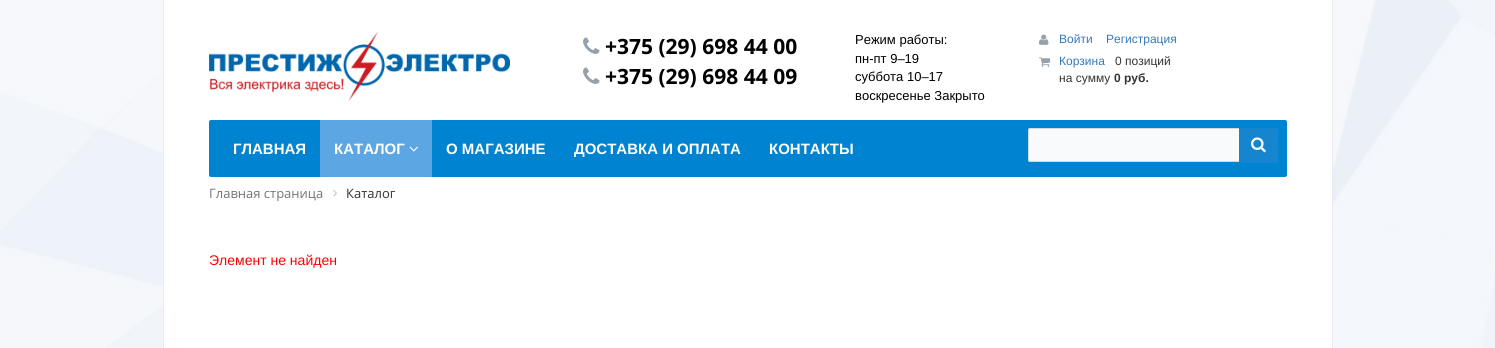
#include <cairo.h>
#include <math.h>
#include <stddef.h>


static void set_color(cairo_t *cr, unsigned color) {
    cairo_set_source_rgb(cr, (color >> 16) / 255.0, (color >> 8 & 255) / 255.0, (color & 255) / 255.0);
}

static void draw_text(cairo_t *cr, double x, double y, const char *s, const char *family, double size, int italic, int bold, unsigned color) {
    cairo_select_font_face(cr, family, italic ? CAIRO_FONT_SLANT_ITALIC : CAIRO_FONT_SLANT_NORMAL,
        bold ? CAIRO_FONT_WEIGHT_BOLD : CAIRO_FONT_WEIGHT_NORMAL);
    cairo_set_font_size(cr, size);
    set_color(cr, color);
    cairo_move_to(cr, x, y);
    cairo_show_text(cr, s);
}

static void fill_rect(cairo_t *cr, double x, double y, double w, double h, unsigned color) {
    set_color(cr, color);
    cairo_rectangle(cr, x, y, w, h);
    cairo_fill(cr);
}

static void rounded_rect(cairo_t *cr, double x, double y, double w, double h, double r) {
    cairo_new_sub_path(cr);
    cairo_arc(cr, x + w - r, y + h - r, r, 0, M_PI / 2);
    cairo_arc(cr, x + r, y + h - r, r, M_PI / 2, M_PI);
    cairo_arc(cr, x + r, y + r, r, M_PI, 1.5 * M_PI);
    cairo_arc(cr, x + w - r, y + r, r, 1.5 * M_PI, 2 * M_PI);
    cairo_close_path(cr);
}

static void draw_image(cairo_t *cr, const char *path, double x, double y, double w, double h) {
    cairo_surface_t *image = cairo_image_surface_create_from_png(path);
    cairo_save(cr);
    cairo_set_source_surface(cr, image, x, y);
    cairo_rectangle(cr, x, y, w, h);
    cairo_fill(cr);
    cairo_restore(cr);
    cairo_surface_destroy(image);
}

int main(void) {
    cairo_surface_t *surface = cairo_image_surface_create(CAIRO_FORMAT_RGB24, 1495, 348);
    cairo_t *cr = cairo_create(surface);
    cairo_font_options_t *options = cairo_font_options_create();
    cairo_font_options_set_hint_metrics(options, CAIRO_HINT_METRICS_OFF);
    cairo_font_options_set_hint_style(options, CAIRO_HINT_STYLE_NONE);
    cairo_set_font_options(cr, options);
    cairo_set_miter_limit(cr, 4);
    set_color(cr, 0xFFFFFF);
    cairo_paint(cr);
    draw_image(cr, "assets/img1.png", 0, 0, 1495, 348);
    fill_rect(cr, 164, 0, 1168, 348, 0xFFFFFF);
    draw_image(cr, "assets/img2.png", 209, 32, 301, 69);
    draw_image(cr, "assets/img3.png", 583, 37, 17, 17);
    draw_text(cr, 605, 54, "+375 (29) 698 44 00", "Open Sans", 21, 0, 1, 0x000000);
    draw_image(cr, "assets/img3.png", 583, 67, 17, 17);
    draw_text(cr, 605, 84, "+375 (29) 698 44 09", "Open Sans", 21, 0, 1, 0x000000);
    draw_text(cr, 855, 44, "Режим работы:", "Liberation Sans", 13, 0, 0, 0x000000);
    draw_text(cr, 855, 63, "пн-пт 9–19", "Liberation Sans", 13, 0, 0, 0x000000);
    draw_text(cr, 855, 81, "суббота 10–17", "Liberation Sans", 13, 0, 0, 0x000000);
    draw_text(cr, 855, 100, "воскресенье Закрыто", "Liberation Sans", 13, 0, 0, 0x000000);
    draw_image(cr, "assets/img4.png", 1039, 34, 10, 11);
    draw_text(cr, 1059, 43, "Войти", "Liberation Sans", 12, 0, 0, 0x337AB7);
    draw_text(cr, 1106, 43, "Регистрация", "Liberation Sans", 12, 0, 0, 0x337AB7);
    draw_image(cr, "assets/img5.png", 1039, 57, 12, 10);
    draw_text(cr, 1059, 65, "Корзина", "Liberation Sans", 12, 0, 0, 0x337AB7);
    draw_text(cr, 1115, 65, "0 позиций", "Liberation Sans", 12, 0, 0, 0x333333);
    draw_text(cr, 1059, 82, "на сумму", "Liberation Sans", 12, 0, 0, 0x333333);
    draw_text(cr, 1114, 82, "0 руб.", "Liberation Sans", 12, 0, 1, 0x333333);
    set_color(cr, 0x0083D1);
    rounded_rect(cr, 209, 120, 1078, 57, 2);
    cairo_fill(cr);
    draw_text(cr, 233, 154, "ГЛАВНАЯ", "Liberation Sans", 15, 0, 1, 0xFFFFFF);
    set_color(cr, 0x5CA6E4);
    rounded_rect(cr, 320, 120, 112, 57, 1);
    cairo_fill(cr);
    draw_text(cr, 334, 154, "КАТАЛОГ", "Liberation Sans", 15, 0, 1, 0xFFFFFF);
    draw_image(cr, "assets/img6.png", 409, 146, 9, 6);
    draw_text(cr, 446, 154, "О МАГАЗИНЕ", "Liberation Sans", 15, 0, 1, 0xFFFFFF);
    draw_text(cr, 574, 154, "ДОСТАВКА И ОПЛАТА", "Liberation Sans", 15, 0, 1, 0xFFFFFF);
    draw_text(cr, 769, 154, "КОНТАКТЫ", "Liberation Sans", 15, 0, 1, 0xFFFFFF);
    set_color(cr, 0xF8FAFC);
    cairo_new_path(cr);
    cairo_move_to(cr, 1030, 128);
    cairo_line_to(cr, 1239, 128);
    cairo_line_to(cr, 1239, 162);
    cairo_line_to(cr, 1030, 162);
    cairo_curve_to(cr, 1029, 162, 1028, 161, 1028, 160);
    cairo_line_to(cr, 1028, 130);
    cairo_curve_to(cr, 1028, 129, 1029, 128, 1030, 128);
    cairo_close_path(cr);
    cairo_fill(cr);
    fill_rect(cr, 1029, 128, 210, 1, 0xD5DADC);
    fill_rect(cr, 1029, 161, 210, 1, 0xD5DADC);
    fill_rect(cr, 1028, 129, 1, 32, 0xD5DADC);
    set_color(cr, 0x1485CE);
    cairo_new_path(cr);
    cairo_move_to(cr, 1239, 128);
    cairo_line_to(cr, 1276, 128);
    cairo_curve_to(cr, 1277, 128, 1278, 129, 1278, 130);
    cairo_line_to(cr, 1278, 161);
    cairo_curve_to(cr, 1278, 162, 1277, 163, 1276, 163);
    cairo_line_to(cr, 1239, 163);
    cairo_close_path(cr);
    cairo_fill(cr);
    draw_image(cr, "assets/img7.png", 1251, 137, 15, 16);
    draw_text(cr, 209, 198, "Главная страница", "Open Sans", 13, 0, 0, 0x757575);
    draw_image(cr, "assets/img8.png", 333, 189, 4, 8);
    draw_text(cr, 346, 198, "Каталог", "Open Sans", 13, 0, 0, 0x333333);
    fill_rect(cr, 1332, 0, 1, 348, 0xEAEBEC);
    fill_rect(cr, 163, 0, 1, 348, 0xEAEBEC);
    draw_text(cr, 209, 265, "Элемент не найден", "Liberation Sans", 14, 0, 0, 0xFF0000);
    cairo_surface_write_to_png(surface, "output.png");
    cairo_font_options_destroy(options);
    cairo_destroy(cr);
    cairo_surface_destroy(surface);
    return 0;
}
